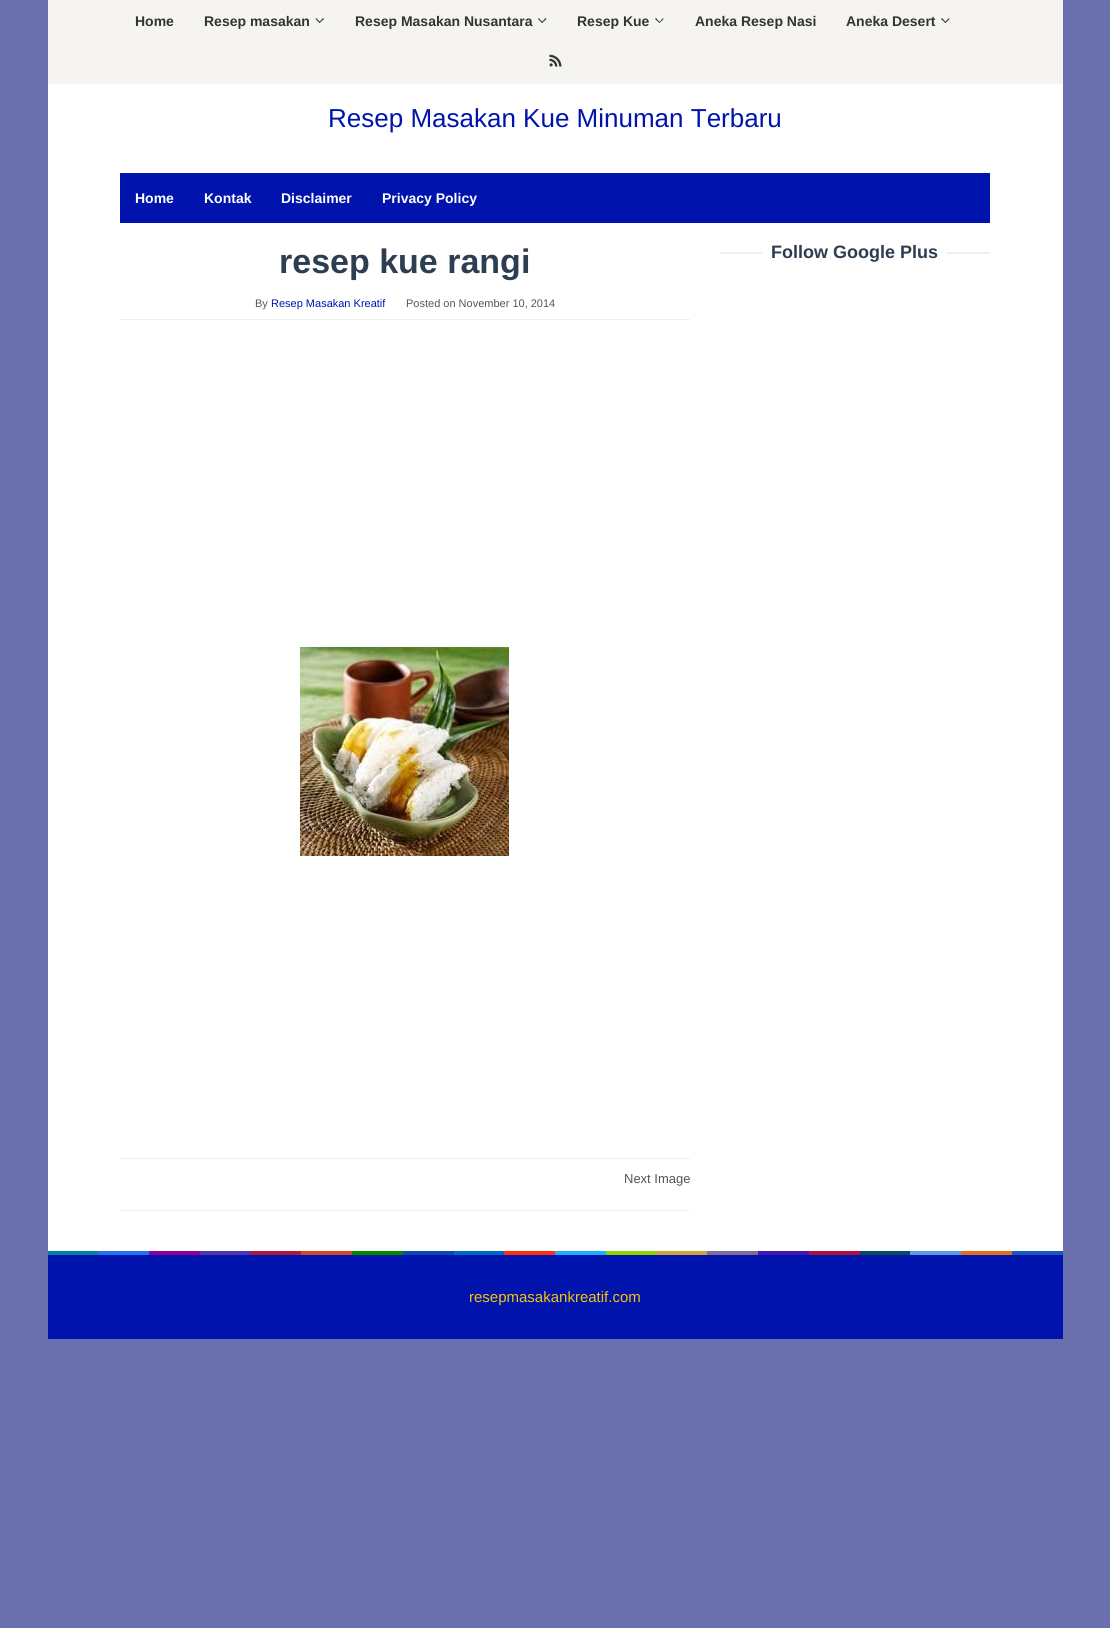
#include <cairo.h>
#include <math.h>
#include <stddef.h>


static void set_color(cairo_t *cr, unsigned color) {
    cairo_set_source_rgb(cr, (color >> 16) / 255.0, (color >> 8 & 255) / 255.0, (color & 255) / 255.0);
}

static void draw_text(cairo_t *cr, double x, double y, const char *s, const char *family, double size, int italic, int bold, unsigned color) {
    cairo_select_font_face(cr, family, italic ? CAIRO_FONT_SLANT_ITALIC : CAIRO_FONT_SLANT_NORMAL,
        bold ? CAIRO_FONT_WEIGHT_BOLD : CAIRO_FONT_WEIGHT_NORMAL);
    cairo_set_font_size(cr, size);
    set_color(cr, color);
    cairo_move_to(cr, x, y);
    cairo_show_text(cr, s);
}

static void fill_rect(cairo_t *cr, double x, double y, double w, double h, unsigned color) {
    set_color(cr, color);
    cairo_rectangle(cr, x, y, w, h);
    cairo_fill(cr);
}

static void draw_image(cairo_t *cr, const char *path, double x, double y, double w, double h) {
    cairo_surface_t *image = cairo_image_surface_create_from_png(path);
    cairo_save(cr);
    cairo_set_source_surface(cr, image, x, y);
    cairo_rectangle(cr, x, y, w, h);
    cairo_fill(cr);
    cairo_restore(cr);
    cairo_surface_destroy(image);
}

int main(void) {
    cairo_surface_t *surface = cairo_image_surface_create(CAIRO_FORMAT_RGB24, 1110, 1628);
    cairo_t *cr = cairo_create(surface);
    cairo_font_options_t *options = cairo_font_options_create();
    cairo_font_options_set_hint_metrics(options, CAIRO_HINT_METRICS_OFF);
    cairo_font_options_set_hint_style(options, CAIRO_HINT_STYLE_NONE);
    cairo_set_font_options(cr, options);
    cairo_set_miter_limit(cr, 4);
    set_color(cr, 0x6970AD);
    cairo_paint(cr);
    fill_rect(cr, 48, 84, 1015, 89, 0xFFFFFF);
    fill_rect(cr, 48, 0, 1015, 84, 0xF6F4F1);
    draw_text(cr, 135, 26, "Home", "Liberation Sans", 14, 0, 1, 0x333333);
    draw_text(cr, 204, 26, "Resep masakan", "Liberation Sans", 14, 0, 1, 0x333333);
    cairo_new_path(cr);
    cairo_move_to(cr, 323, 18);
    cairo_line_to(cr, 324, 19);
    cairo_line_to(cr, 319.5, 23);
    cairo_line_to(cr, 319, 22.5);
    cairo_close_path(cr);
    cairo_fill(cr);
    cairo_new_path(cr);
    cairo_move_to(cr, 316, 18);
    cairo_line_to(cr, 320.5, 22.5);
    cairo_line_to(cr, 319.5, 23);
    cairo_line_to(cr, 315.5, 19);
    cairo_close_path(cr);
    cairo_fill(cr);
    draw_text(cr, 355, 26, "Resep Masakan Nusantara", "Liberation Sans", 14, 0, 1, 0x333333);
    cairo_new_path(cr);
    cairo_move_to(cr, 545.5, 18);
    cairo_line_to(cr, 546.5, 19);
    cairo_line_to(cr, 542, 23);
    cairo_line_to(cr, 541.5, 22.5);
    cairo_close_path(cr);
    cairo_fill(cr);
    cairo_new_path(cr);
    cairo_move_to(cr, 538.5, 18);
    cairo_line_to(cr, 543, 22.5);
    cairo_line_to(cr, 542, 23);
    cairo_line_to(cr, 538, 19);
    cairo_close_path(cr);
    cairo_fill(cr);
    draw_text(cr, 577, 26, "Resep Kue", "Liberation Sans", 14, 0, 1, 0x333333);
    cairo_new_path(cr);
    cairo_move_to(cr, 663, 18);
    cairo_line_to(cr, 663.5, 19);
    cairo_line_to(cr, 659.5, 23);
    cairo_line_to(cr, 659, 22.5);
    cairo_close_path(cr);
    cairo_fill(cr);
    cairo_new_path(cr);
    cairo_move_to(cr, 656, 18);
    cairo_line_to(cr, 660, 22.5);
    cairo_line_to(cr, 659.5, 23);
    cairo_line_to(cr, 655, 19);
    cairo_close_path(cr);
    cairo_fill(cr);
    draw_text(cr, 695, 26, "Aneka Resep Nasi", "Liberation Sans", 14, 0, 1, 0x333333);
    draw_text(cr, 846, 26, "Aneka Desert", "Liberation Sans", 14, 0, 1, 0x333333);
    cairo_new_path(cr);
    cairo_move_to(cr, 949, 18);
    cairo_line_to(cr, 949.5, 19);
    cairo_line_to(cr, 945.5, 23);
    cairo_line_to(cr, 944.5, 22.5);
    cairo_close_path(cr);
    cairo_fill(cr);
    cairo_new_path(cr);
    cairo_move_to(cr, 942, 18);
    cairo_line_to(cr, 946, 22.5);
    cairo_line_to(cr, 945.5, 23);
    cairo_line_to(cr, 941, 19);
    cairo_close_path(cr);
    cairo_fill(cr);
    draw_image(cr, "assets/img1.png", 549, 54, 13, 13);
    draw_text(cr, 328, 127, "Resep Masakan Kue Minuman Terbaru", "Liberation Sans", 26, 0, 0, 0x0014AD);
    fill_rect(cr, 48, 173, 1015, 1078, 0xFFFFFF);
    fill_rect(cr, 120, 173, 870, 50, 0x0014AD);
    draw_text(cr, 135, 203, "Home", "Liberation Sans", 14, 0, 1, 0xFFFFFF);
    draw_text(cr, 204, 203, "Kontak", "Liberation Sans", 14, 0, 1, 0xFFFFFF);
    draw_text(cr, 281, 203, "Disclaimer", "Liberation Sans", 14, 0, 1, 0xFFFFFF);
    draw_text(cr, 382, 203, "Privacy Policy", "Liberation Sans", 14, 0, 1, 0xFFFFFF);
    fill_rect(cr, 120, 1210, 570, 1, 0xECF0F1);
    fill_rect(cr, 120, 319, 570, 1, 0xECF0F1);
    draw_text(cr, 279, 273, "resep kue rangi", "Liberation Sans", 34, 0, 1, 0x2C3E50);
    draw_text(cr, 255, 307, "By", "Liberation Sans", 11, 0, 0, 0x555555);
    draw_text(cr, 271, 307, "Resep Masakan Kreatif", "Liberation Sans", 11, 0, 0, 0x0014AD);
    draw_text(cr, 406, 307, "Posted on November 10, 2014", "Liberation Sans", 11, 0, 0, 0x555555);
    draw_image(cr, "assets/img2.png", 300, 647, 209, 209);
    fill_rect(cr, 120, 1158, 570, 1, 0xECF0F1);
    draw_text(cr, 624, 1183, "Next Image", "Liberation Sans", 13, 0, 0, 0x555555);
    fill_rect(cr, 720, 252, 42, 2, 0xECF0F1);
    draw_text(cr, 771, 258, "Follow Google Plus", "Liberation Sans", 18, 0, 1, 0x2C3E50);
    fill_rect(cr, 947, 252, 43, 2, 0xECF0F1);
    fill_rect(cr, 48, 1251, 50, 4, 0x008299);
    fill_rect(cr, 98, 1251, 51, 4, 0x2672EC);
    fill_rect(cr, 149, 1251, 51, 4, 0x8C0095);
    fill_rect(cr, 200, 1251, 51, 4, 0x5133AB);
    fill_rect(cr, 251, 1251, 50, 4, 0xAC193D);
    fill_rect(cr, 301, 1251, 51, 4, 0xD24726);
    fill_rect(cr, 352, 1251, 51, 4, 0x008A00);
    fill_rect(cr, 403, 1251, 51, 4, 0x094AB2);
    fill_rect(cr, 454, 1251, 50, 4, 0x006AC1);
    fill_rect(cr, 504, 1251, 51, 4, 0xFF2E12);
    fill_rect(cr, 555, 1251, 51, 4, 0x1FAEFF);
    fill_rect(cr, 606, 1251, 51, 4, 0x91D100);
    fill_rect(cr, 657, 1251, 50, 4, 0xCEA539);
    fill_rect(cr, 707, 1251, 51, 4, 0x7F6E94);
    fill_rect(cr, 758, 1251, 51, 4, 0x4617B4);
    fill_rect(cr, 809, 1251, 51, 4, 0xAD103C);
    fill_rect(cr, 860, 1251, 50, 4, 0x004D60);
    fill_rect(cr, 910, 1251, 51, 4, 0x569CE3);
    fill_rect(cr, 961, 1251, 51, 4, 0xE56C19);
    fill_rect(cr, 1012, 1251, 51, 4, 0x1B58B8);
    fill_rect(cr, 48, 1255, 1015, 84, 0x0014AD);
    draw_text(cr, 469, 1302, "resepmasakankreatif.com", "Liberation Sans", 15, 0, 0, 0xF1C40F);
    cairo_surface_write_to_png(surface, "output.png");
    cairo_font_options_destroy(options);
    cairo_destroy(cr);
    cairo_surface_destroy(surface);
    return 0;
}
